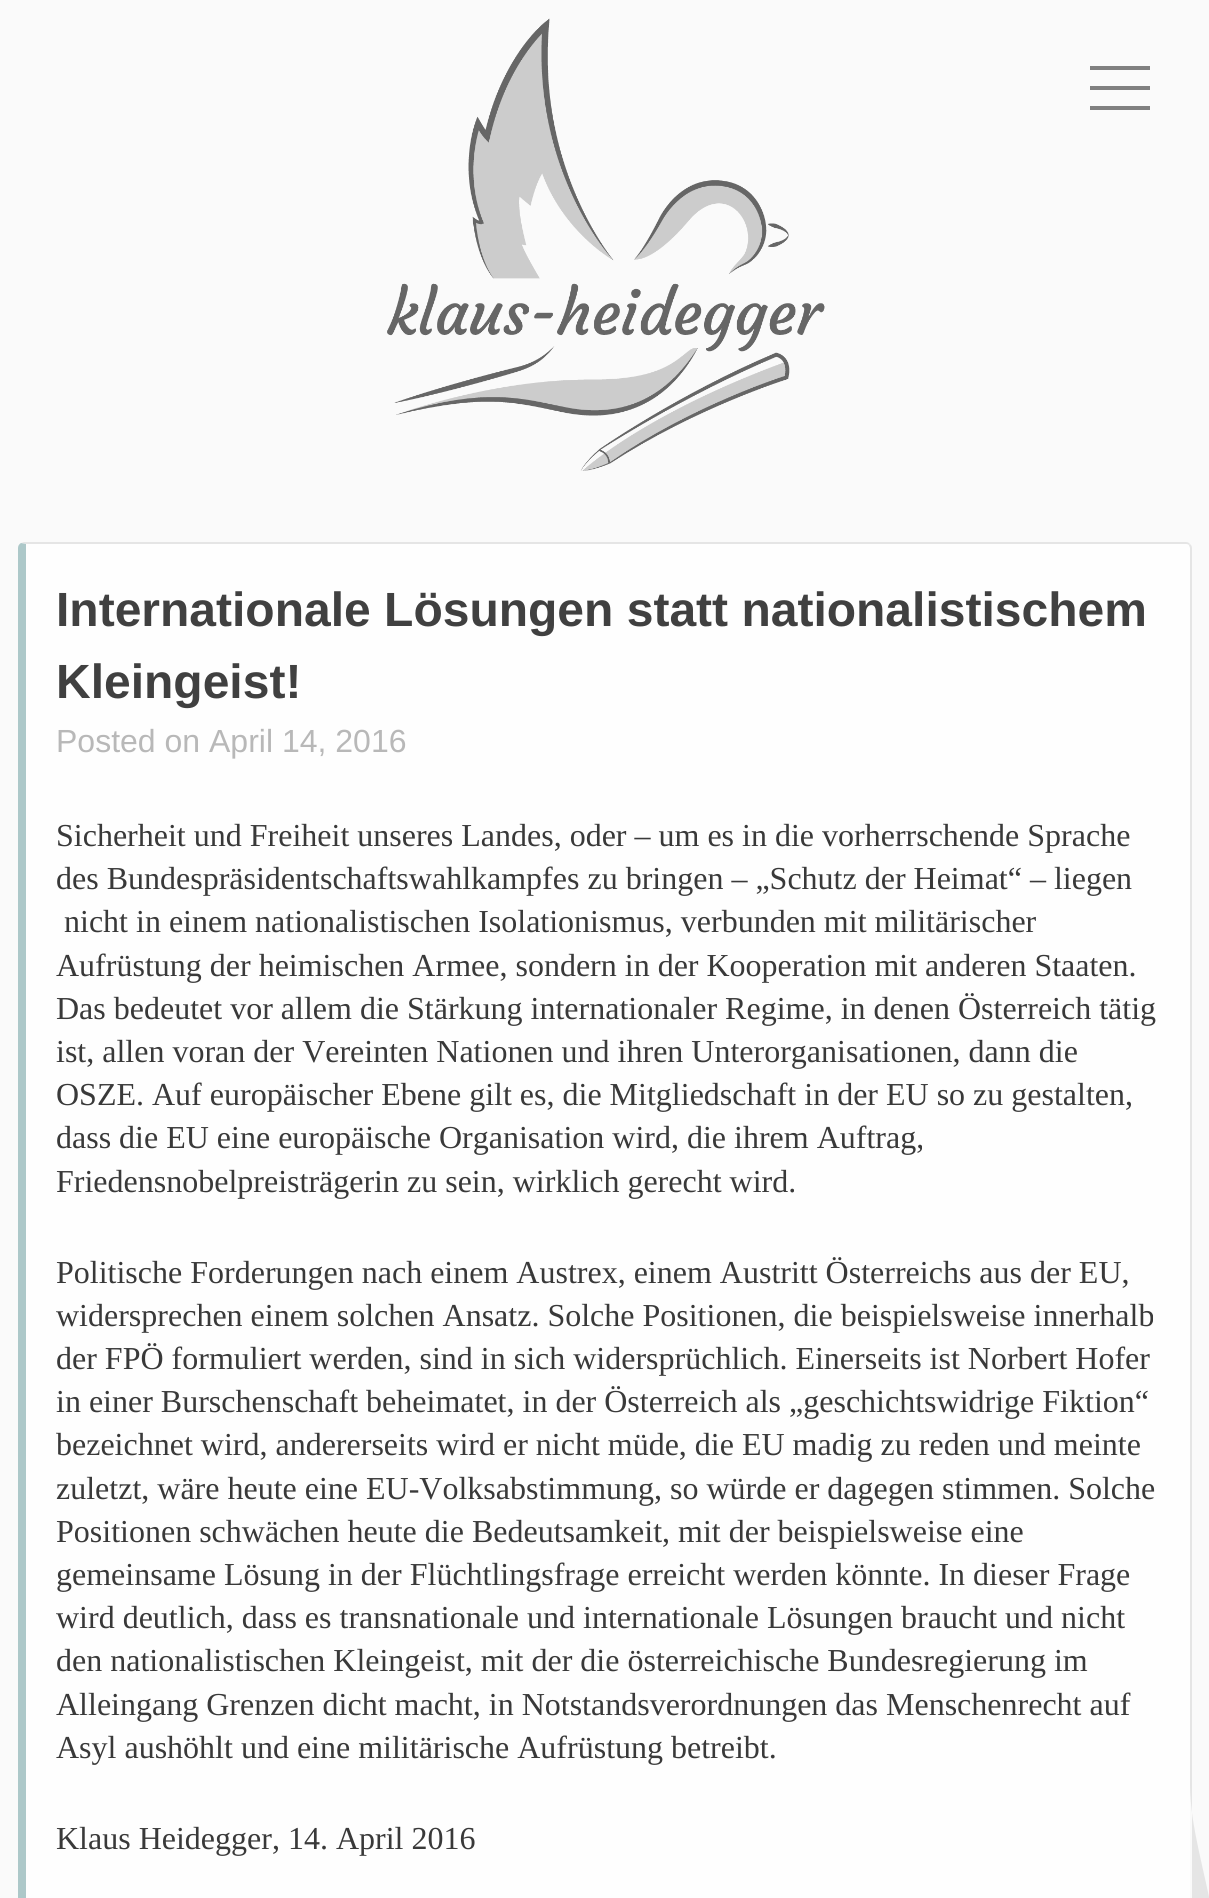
#include <cairo.h>
#include <math.h>
#include <stddef.h>


static void set_color(cairo_t *cr, unsigned color) {
    cairo_set_source_rgb(cr, (color >> 16) / 255.0, (color >> 8 & 255) / 255.0, (color & 255) / 255.0);
}

static void draw_text(cairo_t *cr, double x, double y, const char *s, const char *family, double size, int italic, int bold, unsigned color) {
    cairo_select_font_face(cr, family, italic ? CAIRO_FONT_SLANT_ITALIC : CAIRO_FONT_SLANT_NORMAL,
        bold ? CAIRO_FONT_WEIGHT_BOLD : CAIRO_FONT_WEIGHT_NORMAL);
    cairo_set_font_size(cr, size);
    set_color(cr, color);
    cairo_move_to(cr, x, y);
    cairo_show_text(cr, s);
}

static void fill_rect(cairo_t *cr, double x, double y, double w, double h, unsigned color) {
    set_color(cr, color);
    cairo_rectangle(cr, x, y, w, h);
    cairo_fill(cr);
}

static void draw_image(cairo_t *cr, const char *path, double x, double y, double w, double h) {
    cairo_surface_t *image = cairo_image_surface_create_from_png(path);
    cairo_save(cr);
    cairo_set_source_surface(cr, image, x, y);
    cairo_rectangle(cr, x, y, w, h);
    cairo_fill(cr);
    cairo_restore(cr);
    cairo_surface_destroy(image);
}

int main(void) {
    cairo_surface_t *surface = cairo_image_surface_create(CAIRO_FORMAT_RGB24, 1209, 1898);
    cairo_t *cr = cairo_create(surface);
    cairo_font_options_t *options = cairo_font_options_create();
    cairo_font_options_set_hint_metrics(options, CAIRO_HINT_METRICS_OFF);
    cairo_font_options_set_hint_style(options, CAIRO_HINT_STYLE_NONE);
    cairo_set_font_options(cr, options);
    cairo_set_miter_limit(cr, 4);
    set_color(cr, 0xFAFAFA);
    cairo_paint(cr);
    draw_image(cr, "assets/img1.png", 387, 18, 438, 453);
    fill_rect(cr, 1090, 66, 60, 4, 0x808080);
    fill_rect(cr, 1090, 86, 60, 4, 0x808080);
    fill_rect(cr, 1090, 106, 60, 4, 0x808080);
    set_color(cr, 0xFEFEFE);
    cairo_new_path(cr);
    cairo_move_to(cr, 26, 544);
    cairo_line_to(cr, 1186, 544);
    cairo_curve_to(cr, 1188, 544, 1190, 546, 1190, 548);
    cairo_line_to(cr, 1190, 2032);
    cairo_curve_to(cr, 1190, 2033, 1188, 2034, 1186, 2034);
    cairo_line_to(cr, 26, 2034);
    cairo_close_path(cr);
    cairo_fill(cr);
    set_color(cr, 0xE5E5E5);
    cairo_new_path(cr);
    cairo_move_to(cr, 24, 542);
    cairo_line_to(cr, 21, 543);
    cairo_line_to(cr, 26, 544);
    cairo_line_to(cr, 1186, 544);
    cairo_curve_to(cr, 1187, 544, 1188, 544, 1189, 545);
    cairo_line_to(cr, 1190, 544);
    cairo_curve_to(cr, 1189, 543, 1188, 542, 1186, 542);
    cairo_close_path(cr);
    cairo_fill(cr);
    cairo_new_path(cr);
    cairo_move_to(cr, 1192, 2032);
    cairo_line_to(cr, 1192, 548);
    cairo_curve_to(cr, 1192, 546, 1191, 545, 1190, 544);
    cairo_line_to(cr, 1189, 545);
    cairo_line_to(cr, 1190, 548);
    cairo_line_to(cr, 1190, 1785);
    cairo_curve_to(cr, 1190, 1867, 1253, 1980, 1189, 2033);
    cairo_line_to(cr, 1191, 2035);
    cairo_close_path(cr);
    cairo_fill(cr);
    set_color(cr, 0xADC8C9);
    cairo_new_path(cr);
    cairo_move_to(cr, 26, 544);
    cairo_line_to(cr, 21, 543);
    cairo_curve_to(cr, 19, 544, 18, 546, 18, 548);
    cairo_line_to(cr, 18, 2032);
    cairo_curve_to(cr, 18, 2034, 19, 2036, 21, 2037);
    cairo_line_to(cr, 26, 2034);
    cairo_close_path(cr);
    cairo_fill(cr);
    draw_text(cr, 56, 626, "Internationale Lösungen statt nationalistischem", "Liberation Sans", 48, 0, 1, 0x404040);
    draw_text(cr, 56, 698, "Kleingeist!", "Liberation Sans", 48, 0, 1, 0x404040);
    draw_text(cr, 56, 752, "Posted on April 14, 2016", "Liberation Sans", 32, 0, 0, 0xB8B8B8);
    draw_text(cr, 56, 846, "Sicherheit und Freiheit unseres Landes, oder – um es in die vorherrschende Sprache", "Liberation Serif", 32, 0, 0, 0x393939);
    draw_text(cr, 56, 889, "des Bundespräsidentschaftswahlkampfes zu bringen – „Schutz der Heimat“ – liegen", "Liberation Serif", 32, 0, 0, 0x393939);
    draw_text(cr, 64, 932, "nicht in einem nationalistischen Isolationismus, verbunden mit militärischer", "Liberation Serif", 32, 0, 0, 0x393939);
    draw_text(cr, 56, 976, "Aufrüstung der heimischen Armee, sondern in der Kooperation mit anderen Staaten.", "Liberation Serif", 32, 0, 0, 0x393939);
    draw_text(cr, 56, 1019, "Das bedeutet vor allem die Stärkung internationaler Regime, in denen Österreich tätig", "Liberation Serif", 32, 0, 0, 0x393939);
    draw_text(cr, 56, 1062, "ist, allen voran der Vereinten Nationen und ihren Unterorganisationen, dann die", "Liberation Serif", 32, 0, 0, 0x393939);
    draw_text(cr, 56, 1105, "OSZE. Auf europäischer Ebene gilt es, die Mitgliedschaft in der EU so zu gestalten,", "Liberation Serif", 32, 0, 0, 0x393939);
    draw_text(cr, 56, 1148, "dass die EU eine europäische Organisation wird, die ihrem Auftrag,", "Liberation Serif", 32, 0, 0, 0x393939);
    draw_text(cr, 56, 1192, "Friedensnobelpreisträgerin zu sein, wirklich gerecht wird.", "Liberation Serif", 32, 0, 0, 0x393939);
    draw_text(cr, 56, 1283, "Politische Forderungen nach einem Austrex, einem Austritt Österreichs aus der EU,", "Liberation Serif", 32, 0, 0, 0x393939);
    draw_text(cr, 56, 1326, "widersprechen einem solchen Ansatz. Solche Positionen, die beispielsweise innerhalb", "Liberation Serif", 32, 0, 0, 0x393939);
    draw_text(cr, 56, 1369, "der FPÖ formuliert werden, sind in sich widersprüchlich. Einerseits ist Norbert Hofer", "Liberation Serif", 32, 0, 0, 0x393939);
    draw_text(cr, 56, 1412, "in einer Burschenschaft beheimatet, in der Österreich als „geschichtswidrige Fiktion“", "Liberation Serif", 32, 0, 0, 0x393939);
    draw_text(cr, 56, 1455, "bezeichnet wird, andererseits wird er nicht müde, die EU madig zu reden und meinte", "Liberation Serif", 32, 0, 0, 0x393939);
    draw_text(cr, 56, 1499, "zuletzt, wäre heute eine EU-Volksabstimmung, so würde er dagegen stimmen. Solche", "Liberation Serif", 32, 0, 0, 0x393939);
    draw_text(cr, 56, 1542, "Positionen schwächen heute die Bedeutsamkeit, mit der beispielsweise eine", "Liberation Serif", 32, 0, 0, 0x393939);
    draw_text(cr, 56, 1585, "gemeinsame Lösung in der Flüchtlingsfrage erreicht werden könnte. In dieser Frage", "Liberation Serif", 32, 0, 0, 0x393939);
    draw_text(cr, 56, 1628, "wird deutlich, dass es transnationale und internationale Lösungen braucht und nicht", "Liberation Serif", 32, 0, 0, 0x393939);
    draw_text(cr, 56, 1671, "den nationalistischen Kleingeist, mit der die österreichische Bundesregierung im", "Liberation Serif", 32, 0, 0, 0x393939);
    draw_text(cr, 56, 1715, "Alleingang Grenzen dicht macht, in Notstandsverordnungen das Menschenrecht auf", "Liberation Serif", 32, 0, 0, 0x393939);
    draw_text(cr, 56, 1758, "Asyl aushöhlt und eine militärische Aufrüstung betreibt.", "Liberation Serif", 32, 0, 0, 0x393939);
    draw_text(cr, 56, 1849, "Klaus Heidegger, 14. April 2016", "Liberation Serif", 32, 0, 0, 0x393939);
    cairo_surface_write_to_png(surface, "output.png");
    cairo_font_options_destroy(options);
    cairo_destroy(cr);
    cairo_surface_destroy(surface);
    return 0;
}
